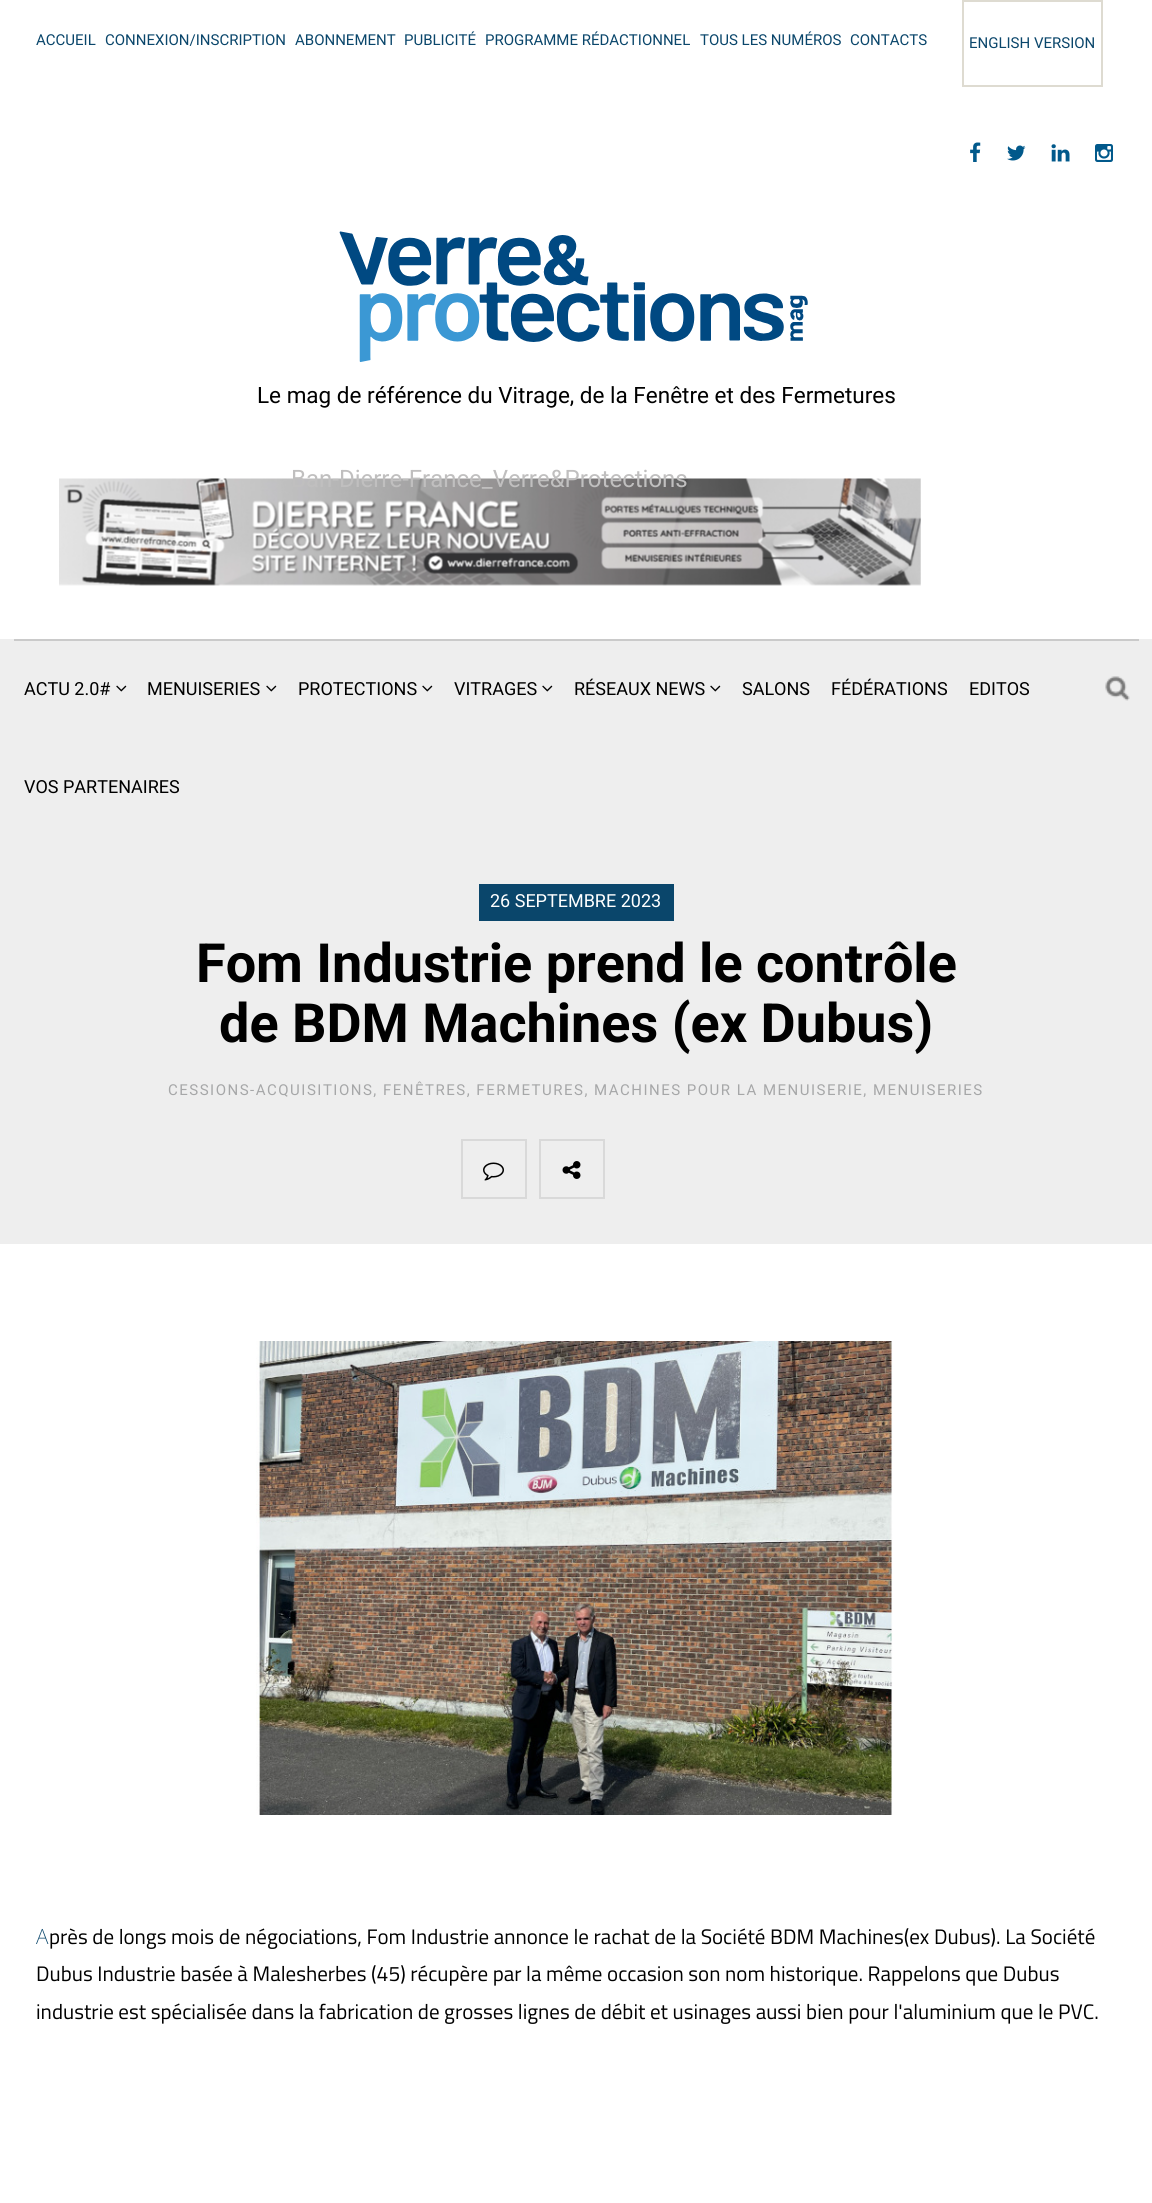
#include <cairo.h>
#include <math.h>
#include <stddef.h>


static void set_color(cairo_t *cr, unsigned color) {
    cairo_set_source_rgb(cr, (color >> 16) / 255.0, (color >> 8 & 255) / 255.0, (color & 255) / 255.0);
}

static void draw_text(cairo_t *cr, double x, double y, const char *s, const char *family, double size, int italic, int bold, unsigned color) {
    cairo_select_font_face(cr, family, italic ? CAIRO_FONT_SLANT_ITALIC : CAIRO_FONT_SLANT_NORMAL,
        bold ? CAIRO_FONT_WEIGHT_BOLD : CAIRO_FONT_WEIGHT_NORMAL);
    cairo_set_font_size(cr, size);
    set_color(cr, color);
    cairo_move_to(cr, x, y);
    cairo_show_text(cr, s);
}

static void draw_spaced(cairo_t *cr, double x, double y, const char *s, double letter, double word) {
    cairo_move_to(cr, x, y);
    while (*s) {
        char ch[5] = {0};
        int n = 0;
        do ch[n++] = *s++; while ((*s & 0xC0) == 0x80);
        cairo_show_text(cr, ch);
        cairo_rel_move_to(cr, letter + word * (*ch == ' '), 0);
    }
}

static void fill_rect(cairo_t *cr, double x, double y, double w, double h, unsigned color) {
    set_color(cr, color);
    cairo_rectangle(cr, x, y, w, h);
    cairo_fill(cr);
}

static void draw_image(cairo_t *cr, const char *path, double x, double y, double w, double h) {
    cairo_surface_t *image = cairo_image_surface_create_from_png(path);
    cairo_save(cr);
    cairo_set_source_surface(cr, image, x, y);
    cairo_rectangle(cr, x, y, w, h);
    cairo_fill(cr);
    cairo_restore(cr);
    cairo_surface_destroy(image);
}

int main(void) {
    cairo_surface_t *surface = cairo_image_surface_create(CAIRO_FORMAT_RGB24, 1152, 2203);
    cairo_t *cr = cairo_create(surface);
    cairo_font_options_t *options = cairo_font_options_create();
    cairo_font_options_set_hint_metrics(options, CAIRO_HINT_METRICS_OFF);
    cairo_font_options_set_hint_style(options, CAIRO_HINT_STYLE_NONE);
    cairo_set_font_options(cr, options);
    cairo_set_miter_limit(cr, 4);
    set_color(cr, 0xFFFFFF);
    cairo_paint(cr);
    draw_text(cr, 36, 45, "ACCUEIL", "Roboto", 15, 0, 0, 0x0A466B);
    draw_text(cr, 105, 45, "CONNEXION/INSCRIPTION", "Roboto", 15, 0, 0, 0x0A466B);
    draw_text(cr, 295, 45, "ABONNEMENT", "Roboto", 15, 0, 0, 0x0A466B);
    draw_text(cr, 404, 45, "PUBLICITÉ", "Roboto", 15, 0, 0, 0x0A466B);
    draw_text(cr, 485, 45, "PROGRAMME RÉDACTIONNEL", "Roboto", 15, 0, 0, 0x0A466B);
    draw_text(cr, 700, 45, "TOUS LES NUMÉROS", "Roboto", 15, 0, 0, 0x0A466B);
    draw_text(cr, 850, 45, "CONTACTS", "Roboto", 15, 0, 0, 0x0A466B);
    cairo_rectangle(cr, 963, 1, 139, 85);
    set_color(cr, 0xDEDBD1);
    cairo_stroke(cr);
    draw_text(cr, 969, 48, "ENGLISH VERSION", "Roboto", 15, 0, 0, 0x0A466B);
    draw_image(cr, "assets/img1.png", 970, 142, 11, 20);
    draw_image(cr, "assets/img2.png", 1007, 145, 19, 16);
    draw_image(cr, "assets/img3.png", 1051, 144, 19, 18);
    draw_image(cr, "assets/img4.png", 1095, 144, 18, 18);
    draw_image(cr, "assets/img5.png", 339, 231, 469, 131);
    draw_text(cr, 257, 403, "Le mag de référence du Vitrage, de la Fenêtre et des Fermetures", "Roboto", 22.5, 0, 0, 0x000000);
    draw_image(cr, "assets/img6.png", 59, 478, 862, 108);
    draw_text(cr, 291, 487, "Ban-Dierre-France_Verre&Protections", "Roboto", 24, 0, 0, 0xC0BFBF);
    fill_rect(cr, 0, 639, 1152, 605, 0xEEEEEE);
    fill_rect(cr, 14, 639, 1125, 2, 0xCACACA);
    draw_text(cr, 24, 695, "ACTU 2.0#", "Roboto", 18, 0, 0, 0x000000);
    draw_image(cr, "assets/img7.png", 116, 685, 11, 7);
    draw_text(cr, 147, 695, "MENUISERIES", "Roboto", 18, 0, 0, 0x000000);
    draw_image(cr, "assets/img7.png", 266, 685, 11, 7);
    draw_text(cr, 298, 695, "PROTECTIONS", "Roboto", 18, 0, 0, 0x000000);
    draw_image(cr, "assets/img7.png", 422, 685, 11, 7);
    draw_text(cr, 454, 695, "VITRAGES", "Roboto", 18, 0, 0, 0x000000);
    draw_image(cr, "assets/img7.png", 542, 685, 11, 7);
    draw_text(cr, 574, 695, "RÉSEAUX NEWS", "Roboto", 18, 0, 0, 0x000000);
    draw_image(cr, "assets/img7.png", 710, 685, 11, 7);
    draw_text(cr, 742, 695, "SALONS", "Roboto", 18, 0, 0, 0x000000);
    draw_text(cr, 831, 695, "FÉDÉRATIONS", "Roboto", 18, 0, 0, 0x000000);
    draw_text(cr, 969, 695, "EDITOS", "Roboto", 18, 0, 0, 0x000000);
    draw_text(cr, 24, 793, "VOS PARTENAIRES", "Roboto", 18, 0, 0, 0x000000);
    draw_image(cr, "assets/img8.png", 1105, 676, 25, 25);
    fill_rect(cr, 479, 884, 195, 37, 0x0A466B);
    draw_text(cr, 490, 907, "26 SEPTEMBRE 2023", "Roboto", 18, 0, 0, 0xFFFFFF);
    draw_text(cr, 196, 982, "Fom Industrie prend le contrôle", "Roboto", 54, 0, 1, 0x000000);
    draw_text(cr, 219, 1042, "de BDM Machines (ex Dubus)", "Roboto", 54, 0, 1, 0x000000);
    cairo_select_font_face(cr, "Roboto", CAIRO_FONT_SLANT_NORMAL, CAIRO_FONT_WEIGHT_NORMAL);
    cairo_set_font_size(cr, 15);
    set_color(cr, 0xA6A7A8);
    draw_spaced(cr, 168, 1095, "CESSIONS-ACQUISITIONS, FENÊTRES, FERMETURES, MACHINES POUR LA MENUISERIE, MENUISERIES", 1.5, 0);
    cairo_rectangle(cr, 462, 1140, 64, 58);
    set_color(cr, 0xD9D9D9);
    cairo_stroke(cr);
    draw_image(cr, "assets/img9.png", 483, 1162, 21, 19);
    cairo_rectangle(cr, 540, 1140, 64, 58);
    cairo_stroke(cr);
    draw_image(cr, "assets/img10.png", 562, 1161, 19, 18);
    draw_image(cr, "assets/img11.png", 256, 1341, 637, 474);
    draw_text(cr, 36, 1944, "A", "Noto Sans ExtraLight", 21, 0, 0, 0x0A466B);
    draw_text(cr, 49, 1944, "près de longs mois de négociations, Fom Industrie annonce le rachat de la Société BDM Machines(ex Dubus). La Société", "Titillium Web", 21, 0, 0, 0x000000);
    draw_text(cr, 36, 1981, "Dubus Industrie basée à Malesherbes (45) récupère par la même occasion son nom historique. Rappelons que Dubus", "Titillium Web", 21, 0, 0, 0x000000);
    draw_text(cr, 36, 2019, "industrie est spécialisée dans la fabrication de grosses lignes de débit et usinages aussi bien pour l'aluminium que le PVC.", "Titillium Web", 21, 0, 0, 0x000000);
    cairo_surface_write_to_png(surface, "output.png");
    cairo_font_options_destroy(options);
    cairo_destroy(cr);
    cairo_surface_destroy(surface);
    return 0;
}
